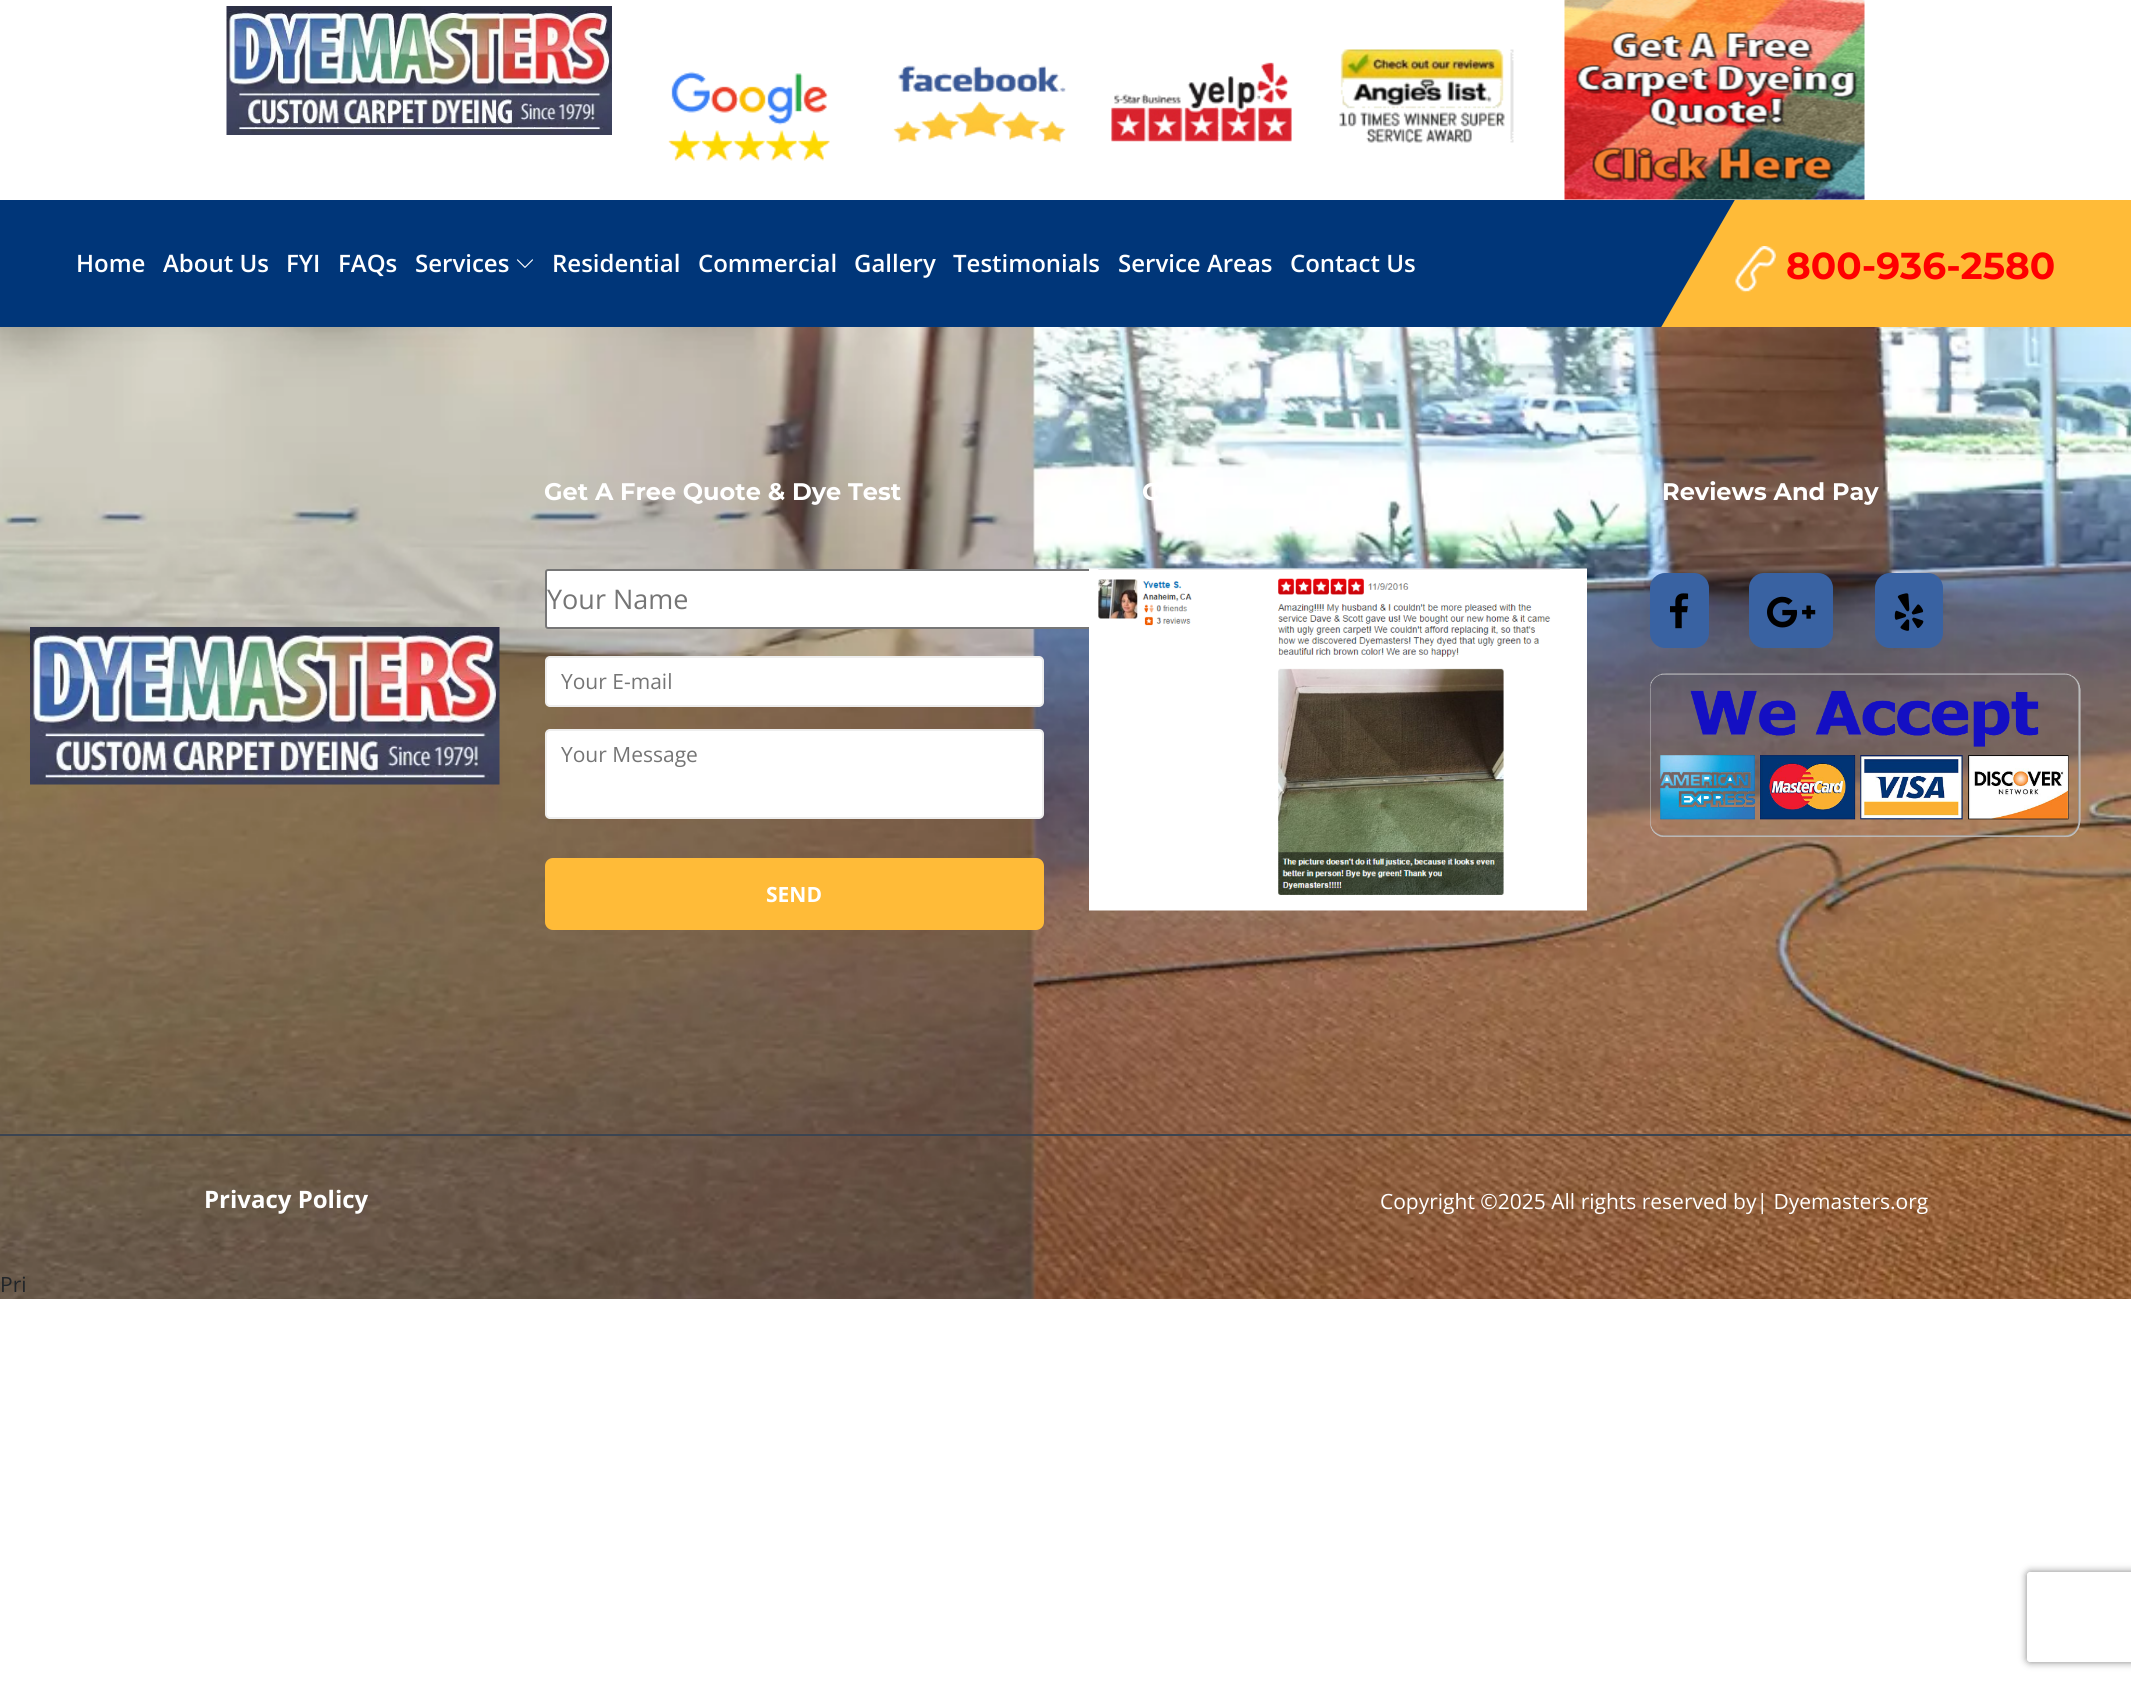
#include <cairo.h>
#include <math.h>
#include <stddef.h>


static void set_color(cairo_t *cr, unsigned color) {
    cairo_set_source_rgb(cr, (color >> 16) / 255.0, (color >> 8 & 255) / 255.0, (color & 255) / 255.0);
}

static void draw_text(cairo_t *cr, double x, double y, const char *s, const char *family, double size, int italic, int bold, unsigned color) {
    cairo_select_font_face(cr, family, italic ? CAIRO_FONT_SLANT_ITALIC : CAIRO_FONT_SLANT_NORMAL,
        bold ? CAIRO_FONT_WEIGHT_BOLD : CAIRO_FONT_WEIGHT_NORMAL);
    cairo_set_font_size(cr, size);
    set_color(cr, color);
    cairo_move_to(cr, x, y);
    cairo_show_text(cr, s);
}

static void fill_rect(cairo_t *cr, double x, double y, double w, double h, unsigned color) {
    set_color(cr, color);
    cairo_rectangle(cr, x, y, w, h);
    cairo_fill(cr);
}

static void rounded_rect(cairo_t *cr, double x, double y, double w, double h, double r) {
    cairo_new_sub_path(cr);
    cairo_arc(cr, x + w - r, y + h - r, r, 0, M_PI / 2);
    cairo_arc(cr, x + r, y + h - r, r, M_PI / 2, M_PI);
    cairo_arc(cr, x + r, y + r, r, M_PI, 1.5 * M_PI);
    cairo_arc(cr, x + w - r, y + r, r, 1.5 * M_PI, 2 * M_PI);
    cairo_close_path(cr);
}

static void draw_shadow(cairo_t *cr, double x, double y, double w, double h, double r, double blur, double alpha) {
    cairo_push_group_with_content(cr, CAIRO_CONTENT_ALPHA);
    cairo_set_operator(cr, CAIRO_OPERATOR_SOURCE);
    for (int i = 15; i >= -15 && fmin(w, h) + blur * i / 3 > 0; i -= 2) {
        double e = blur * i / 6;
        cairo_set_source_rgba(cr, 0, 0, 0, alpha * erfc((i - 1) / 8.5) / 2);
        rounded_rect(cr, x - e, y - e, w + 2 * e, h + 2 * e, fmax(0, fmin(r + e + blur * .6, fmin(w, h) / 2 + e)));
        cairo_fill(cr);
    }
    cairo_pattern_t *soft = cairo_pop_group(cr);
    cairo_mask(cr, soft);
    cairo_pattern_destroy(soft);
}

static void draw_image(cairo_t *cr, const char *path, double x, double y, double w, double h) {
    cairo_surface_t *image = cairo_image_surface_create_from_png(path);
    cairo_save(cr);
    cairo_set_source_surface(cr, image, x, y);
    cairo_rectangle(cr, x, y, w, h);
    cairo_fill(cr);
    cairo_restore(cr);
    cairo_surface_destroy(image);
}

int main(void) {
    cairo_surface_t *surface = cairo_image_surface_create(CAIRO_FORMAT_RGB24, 2131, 1683);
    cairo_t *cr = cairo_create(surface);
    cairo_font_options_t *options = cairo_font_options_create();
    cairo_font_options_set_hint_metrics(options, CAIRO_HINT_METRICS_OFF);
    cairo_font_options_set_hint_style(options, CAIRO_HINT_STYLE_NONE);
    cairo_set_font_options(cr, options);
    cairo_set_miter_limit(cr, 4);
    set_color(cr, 0xFFFFFF);
    cairo_paint(cr);
    draw_image(cr, "assets/img1.png", 226, 6, 386, 129);
    draw_image(cr, "assets/img2.png", 668, 71, 162, 90);
    draw_image(cr, "assets/img3.png", 893, 65, 173, 78);
    draw_image(cr, "assets/img4.png", 1111, 62, 181, 80);
    draw_image(cr, "assets/img5.png", 1339, 49, 175, 94);
    draw_image(cr, "assets/img6.png", 1564, 0, 301, 200);
    fill_rect(cr, 2055, 200, 76, 127, 0xFFBB38);
    fill_rect(cr, 0, 200, 1735, 127, 0x003679);
    draw_text(cr, 76, 272, "Home", "Open Sans SemiBold", 24, 0, 0, 0xFFFFFF);
    draw_text(cr, 163, 272, "About Us", "Open Sans SemiBold", 24, 0, 0, 0xFFFFFF);
    draw_text(cr, 286, 272, "FYI", "Open Sans SemiBold", 24, 0, 0, 0xFFFFFF);
    draw_text(cr, 338, 272, "FAQs", "Open Sans SemiBold", 24, 0, 0, 0xFFFFFF);
    draw_text(cr, 415, 272, "Services", "Open Sans SemiBold", 24, 0, 0, 0xFFFFFF);
    draw_image(cr, "assets/img7.png", 516, 259, 17, 9);
    draw_text(cr, 552, 272, "Residential", "Open Sans SemiBold", 24, 0, 0, 0xFFFFFF);
    draw_text(cr, 698, 272, "Commercial", "Open Sans SemiBold", 24, 0, 0, 0xFFFFFF);
    draw_text(cr, 854, 272, "Gallery", "Open Sans SemiBold", 24, 0, 0, 0xFFFFFF);
    draw_text(cr, 953, 272, "Testimonials", "Open Sans SemiBold", 24, 0, 0, 0xFFFFFF);
    draw_text(cr, 1118, 272, "Service Areas", "Open Sans SemiBold", 24, 0, 0, 0xFFFFFF);
    draw_text(cr, 1290, 272, "Contact Us", "Open Sans SemiBold", 24, 0, 0, 0xFFFFFF);
    cairo_save(cr);
    cairo_rectangle(cr, 1661, 200, 394, 127);
    cairo_clip(cr);
    set_color(cr, 0xFFBB38);
    cairo_new_path(cr);
    cairo_move_to(cr, 1751, 172);
    cairo_line_to(cr, 2093, 369);
    cairo_line_to(cr, 1965, 590);
    cairo_line_to(cr, 1623, 393);
    cairo_close_path(cr);
    cairo_fill(cr);
    cairo_restore(cr);
    fill_rect(cr, 1799, 200, 256, 127, 0xFFBB38);
    draw_image(cr, "assets/img8.png", 1735, 246, 41, 47);
    draw_text(cr, 1786, 279, "800-936-2580", "Montserrat", 37.5, 0, 1, 0xFF0000);
    draw_image(cr, "assets/img9.png", 0, 327, 2131, 972);
    draw_text(cr, 544, 500, "Get A Free Quote & Dye Test", "Montserrat", 24, 0, 1, 0xFFFFFF);
    rounded_rect(cr, 546, 570, 583, 58, 2);
    cairo_fill_preserve(cr);
    set_color(cr, 0x767676);
    cairo_stroke(cr);
    draw_text(cr, 547, 609, "Your Name", "Open Sans", 27, 0, 0, 0x757575);
    set_color(cr, 0xFFFFFF);
    rounded_rect(cr, 546, 657, 497, 49, 4);
    cairo_fill_preserve(cr);
    set_color(cr, 0xEEEEEE);
    cairo_stroke(cr);
    draw_text(cr, 561, 689, "Your E-mail", "Open Sans", 21, 0, 0, 0x757575);
    set_color(cr, 0xFFFFFF);
    rounded_rect(cr, 546, 730, 497, 88, 4);
    cairo_fill_preserve(cr);
    set_color(cr, 0xEEEEEE);
    cairo_stroke(cr);
    draw_text(cr, 561, 762, "Your Message", "Open Sans", 21, 0, 0, 0x757575);
    set_color(cr, 0xFFBB38);
    rounded_rect(cr, 545, 858, 499, 72, 8);
    cairo_fill(cr);
    draw_text(cr, 766, 902, "SEND", "Open Sans", 21, 0, 1, 0xFFFFFF);
    draw_text(cr, 1142, 500, "C", "Montserrat", 24, 0, 1, 0xFFFFFF);
    draw_image(cr, "assets/img10.png", 1089, 568, 498, 343);
    draw_text(cr, 1662, 500, "Reviews And Pay", "Montserrat", 24, 0, 1, 0xFFFFFF);
    set_color(cr, 0x3962A2);
    rounded_rect(cr, 1650, 573, 59, 75, 15);
    cairo_fill(cr);
    draw_image(cr, "assets/img11.png", 1670, 593, 19, 36);
    rounded_rect(cr, 1749, 573, 84, 75, 15);
    cairo_fill(cr);
    draw_image(cr, "assets/img12.png", 1767, 596, 49, 32);
    rounded_rect(cr, 1875, 573, 68, 75, 15);
    cairo_fill(cr);
    draw_image(cr, "assets/img13.png", 1894, 593, 30, 38);
    draw_image(cr, "assets/img14.png", 1650, 673, 431, 164);
    draw_image(cr, "assets/img15.png", 30, 627, 470, 158);
    fill_rect(cr, 0, 1134, 2131, 2, 0x3C4450);
    draw_text(cr, 204, 1208, "Privacy Policy", "Open Sans", 24, 0, 1, 0xFFFFFF);
    draw_text(cr, 1380, 1209, "Copyright ©2025 All rights reserved by| Dyemasters.org", "Open Sans", 21, 0, 0, 0xFFFFFF);
    draw_text(cr, 0, 1292, "Pri", "Open Sans", 21, 0, 0, 0x212529);
    cairo_save(cr);
    cairo_set_fill_rule(cr, CAIRO_FILL_RULE_EVEN_ODD);
    cairo_new_path(cr);
    cairo_move_to(cr, 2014, 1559);
    cairo_line_to(cr, 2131, 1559);
    cairo_line_to(cr, 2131, 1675);
    cairo_line_to(cr, 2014, 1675);
    cairo_close_path(cr);
    cairo_move_to(cr, 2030, 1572);
    cairo_line_to(cr, 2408, 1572);
    cairo_curve_to(cr, 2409.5, 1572, 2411, 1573.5, 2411, 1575);
    cairo_line_to(cr, 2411, 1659);
    cairo_curve_to(cr, 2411, 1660.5, 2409.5, 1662, 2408, 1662);
    cairo_line_to(cr, 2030, 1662);
    cairo_curve_to(cr, 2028.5, 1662, 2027, 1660.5, 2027, 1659);
    cairo_line_to(cr, 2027, 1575);
    cairo_curve_to(cr, 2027, 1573.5, 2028.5, 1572, 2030, 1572);
    cairo_close_path(cr);
    cairo_clip(cr);
    set_color(cr, 0x808080);
    draw_shadow(cr, 2027, 1572, 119, 90, 3, 4, 1);
    cairo_restore(cr);
    cairo_surface_write_to_png(surface, "output.png");
    cairo_font_options_destroy(options);
    cairo_destroy(cr);
    cairo_surface_destroy(surface);
    return 0;
}
